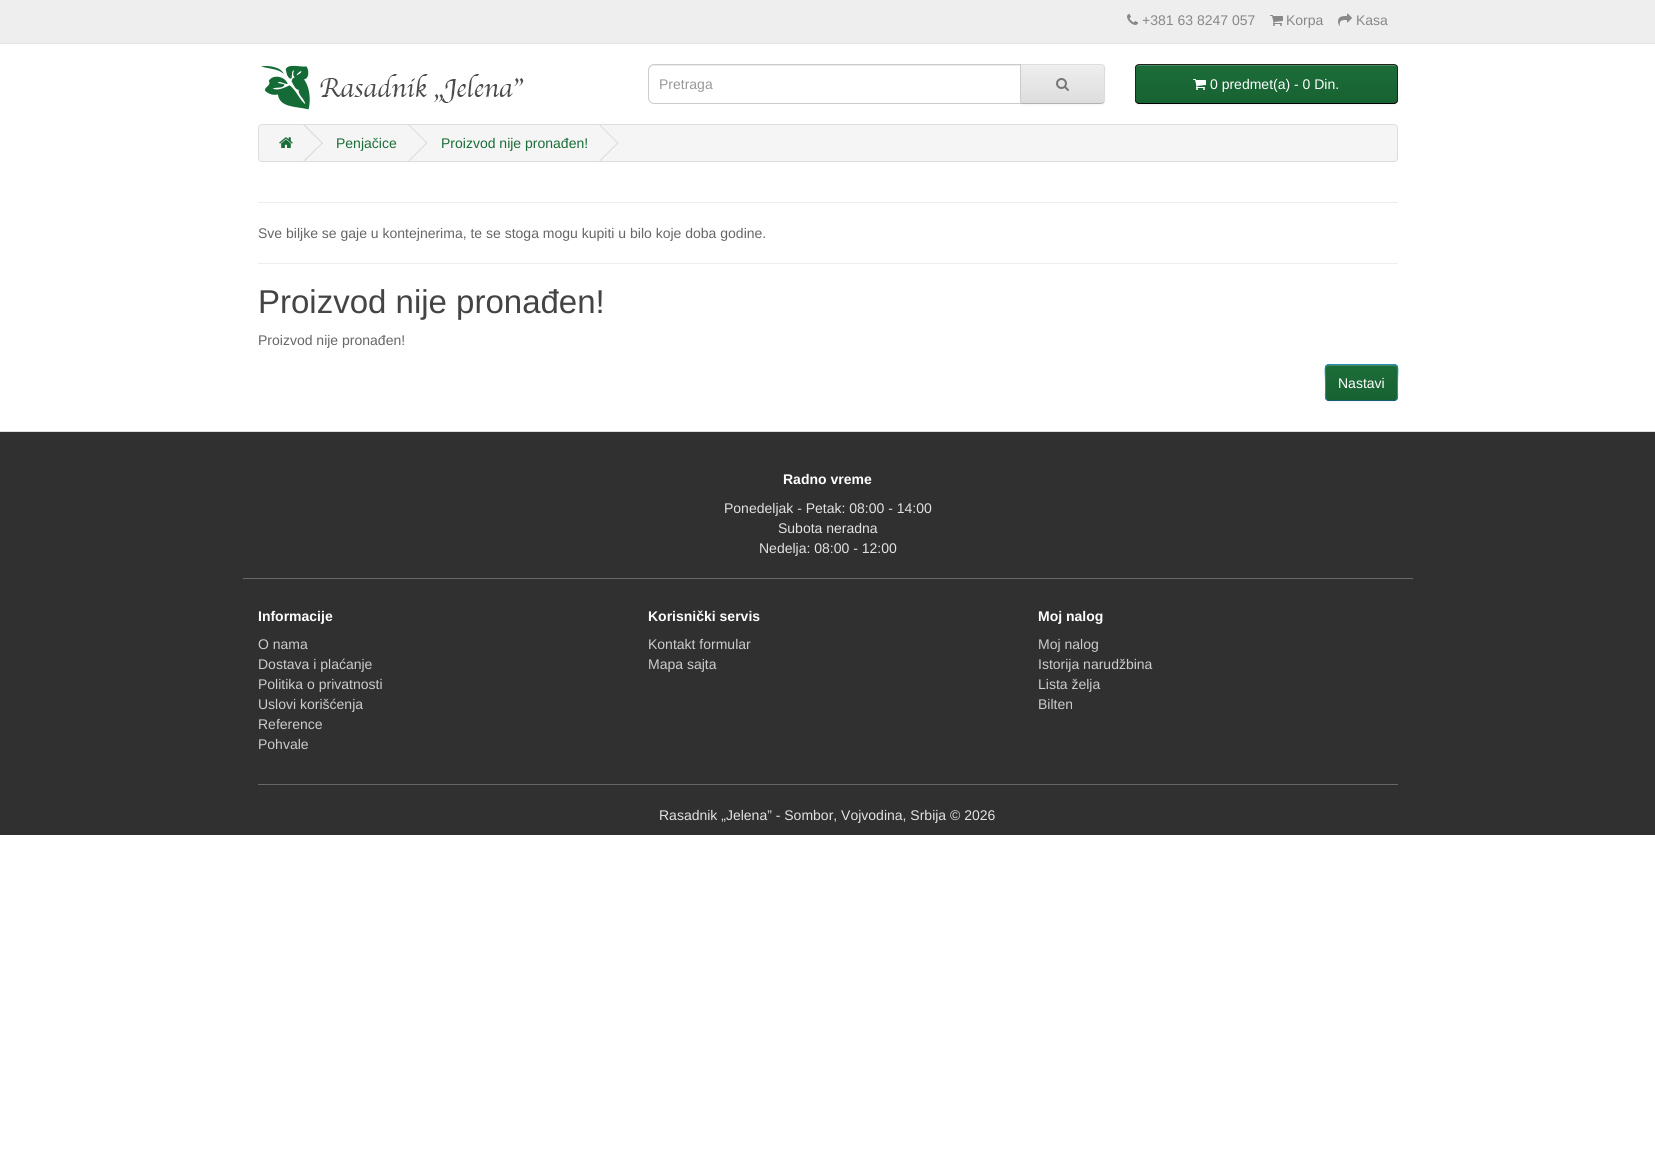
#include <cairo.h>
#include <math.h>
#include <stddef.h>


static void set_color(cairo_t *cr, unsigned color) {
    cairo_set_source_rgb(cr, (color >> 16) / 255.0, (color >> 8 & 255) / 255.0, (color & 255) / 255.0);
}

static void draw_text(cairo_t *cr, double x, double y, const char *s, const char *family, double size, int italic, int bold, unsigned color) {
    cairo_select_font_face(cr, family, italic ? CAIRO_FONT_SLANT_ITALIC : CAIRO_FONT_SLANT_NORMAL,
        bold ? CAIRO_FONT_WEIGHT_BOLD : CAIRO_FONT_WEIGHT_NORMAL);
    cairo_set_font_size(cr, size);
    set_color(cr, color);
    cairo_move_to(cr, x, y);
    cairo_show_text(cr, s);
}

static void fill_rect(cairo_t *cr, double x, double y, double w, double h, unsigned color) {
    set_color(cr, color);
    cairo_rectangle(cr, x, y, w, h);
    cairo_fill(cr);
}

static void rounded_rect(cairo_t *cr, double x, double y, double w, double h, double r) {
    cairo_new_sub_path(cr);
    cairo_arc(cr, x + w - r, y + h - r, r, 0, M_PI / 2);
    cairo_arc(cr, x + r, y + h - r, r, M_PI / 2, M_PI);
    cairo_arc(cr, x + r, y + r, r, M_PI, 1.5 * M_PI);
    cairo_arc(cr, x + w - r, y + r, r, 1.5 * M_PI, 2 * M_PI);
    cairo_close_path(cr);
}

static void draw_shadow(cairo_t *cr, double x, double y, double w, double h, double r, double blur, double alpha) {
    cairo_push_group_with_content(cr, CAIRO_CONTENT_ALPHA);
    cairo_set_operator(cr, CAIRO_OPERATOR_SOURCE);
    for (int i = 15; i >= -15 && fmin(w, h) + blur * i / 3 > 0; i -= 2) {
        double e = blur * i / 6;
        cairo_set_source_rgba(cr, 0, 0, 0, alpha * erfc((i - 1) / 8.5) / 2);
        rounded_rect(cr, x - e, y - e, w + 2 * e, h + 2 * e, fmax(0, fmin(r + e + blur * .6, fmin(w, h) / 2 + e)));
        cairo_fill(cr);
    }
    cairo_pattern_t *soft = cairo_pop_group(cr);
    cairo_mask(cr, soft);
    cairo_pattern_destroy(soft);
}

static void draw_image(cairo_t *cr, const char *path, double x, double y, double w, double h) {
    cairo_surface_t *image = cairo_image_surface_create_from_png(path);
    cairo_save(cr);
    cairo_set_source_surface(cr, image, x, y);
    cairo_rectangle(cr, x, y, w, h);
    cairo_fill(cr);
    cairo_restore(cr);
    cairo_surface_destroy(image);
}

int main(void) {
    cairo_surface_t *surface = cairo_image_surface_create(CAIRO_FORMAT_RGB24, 1655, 1168);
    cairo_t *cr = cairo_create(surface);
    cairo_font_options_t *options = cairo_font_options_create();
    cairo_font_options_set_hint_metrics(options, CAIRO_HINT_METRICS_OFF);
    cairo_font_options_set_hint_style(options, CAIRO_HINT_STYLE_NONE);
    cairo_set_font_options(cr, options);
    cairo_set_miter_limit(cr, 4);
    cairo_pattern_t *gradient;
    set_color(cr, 0xFFFFFF);
    cairo_paint(cr);
    fill_rect(cr, 0, 0, 1655, 43, 0xEEEEEE);
    fill_rect(cr, 0, 43, 1655, 1, 0xE2E2E2);
    draw_image(cr, "assets/img1.png", 1127, 14, 11, 11);
    draw_text(cr, 1142, 25, "+381 63 8247 057", "Liberation Sans", 14, 0, 0, 0x888888);
    draw_image(cr, "assets/img2.png", 1270, 15, 13, 11);
    draw_text(cr, 1286, 25, "Korpa", "Liberation Sans", 14, 0, 0, 0x888888);
    draw_image(cr, "assets/img3.png", 1338, 13, 14, 13);
    draw_text(cr, 1356, 25, "Kasa", "Liberation Sans", 14, 0, 0, 0x888888);
    draw_image(cr, "assets/img4.png", 261, 65, 263, 45);
    set_color(cr, 0x000000);
    draw_shadow(cr, 1020, 65, 85, 40, 4, 1, 0.05);
    set_color(cr, 0xE7E7E7);
    cairo_new_path(cr);
    cairo_move_to(cr, 1020, 64);
    cairo_line_to(cr, 1101, 64);
    cairo_curve_to(cr, 1103, 64, 1105, 66, 1105, 68);
    cairo_line_to(cr, 1105, 100);
    cairo_curve_to(cr, 1105, 102, 1103, 104, 1101, 104);
    cairo_line_to(cr, 1020, 104);
    cairo_close_path(cr);
    cairo_fill(cr);
    cairo_save(cr);
    cairo_new_path(cr);
    cairo_move_to(cr, 1020, 64);
    cairo_line_to(cr, 1101, 64);
    cairo_curve_to(cr, 1103, 64, 1105, 66, 1105, 68);
    cairo_line_to(cr, 1105, 100);
    cairo_curve_to(cr, 1105, 102, 1103, 104, 1101, 104);
    cairo_line_to(cr, 1020, 104);
    cairo_close_path(cr);
    cairo_clip(cr);
    gradient = cairo_pattern_create_linear(1063, 65, 1063, 103);
    cairo_pattern_add_color_stop_rgba(gradient, 0, 0.933, 0.933, 0.933, 1);
    cairo_pattern_add_color_stop_rgba(gradient, 1, 0.867, 0.867, 0.867, 1);
    cairo_set_source(cr, gradient);
    cairo_pattern_destroy(gradient);
    cairo_rectangle(cr, 1021, 65, 84, 38);
    cairo_fill(cr);
    cairo_restore(cr);
    set_color(cr, 0xF1F1F1);
    cairo_new_path(cr);
    cairo_move_to(cr, 1021, 66);
    cairo_line_to(cr, 1101, 66);
    cairo_curve_to(cr, 1103, 66, 1104, 67, 1104, 69);
    cairo_line_to(cr, 1104, 68);
    cairo_curve_to(cr, 1104, 66, 1103, 65, 1101, 65);
    cairo_line_to(cr, 1021, 65);
    cairo_close_path(cr);
    cairo_fill(cr);
    set_color(cr, 0xDDDDDD);
    cairo_new_path(cr);
    cairo_move_to(cr, 1020, 64);
    cairo_line_to(cr, 1021, 65);
    cairo_line_to(cr, 1102, 65);
    cairo_line_to(cr, 1103, 66);
    cairo_line_to(cr, 1104, 65);
    cairo_line_to(cr, 1101, 64);
    cairo_close_path(cr);
    cairo_fill(cr);
    cairo_new_path(cr);
    cairo_move_to(cr, 1105, 100);
    cairo_line_to(cr, 1105, 68);
    cairo_curve_to(cr, 1105, 67, 1104.5, 66, 1104, 65);
    cairo_line_to(cr, 1103, 66);
    cairo_curve_to(cr, 1104, 66, 1104, 67, 1104, 68);
    cairo_line_to(cr, 1104, 100);
    cairo_curve_to(cr, 1104, 101, 1104, 102, 1103, 102);
    cairo_line_to(cr, 1104, 103);
    cairo_curve_to(cr, 1104.5, 102, 1105, 101, 1105, 100);
    cairo_close_path(cr);
    cairo_fill(cr);
    set_color(cr, 0xB3B3B3);
    cairo_new_path(cr);
    cairo_move_to(cr, 1101, 104);
    cairo_line_to(cr, 1104, 103);
    cairo_line_to(cr, 1103, 102);
    cairo_line_to(cr, 1102, 103);
    cairo_line_to(cr, 1021, 103);
    cairo_line_to(cr, 1020, 104);
    cairo_close_path(cr);
    cairo_fill(cr);
    set_color(cr, 0xFFFFFF);
    cairo_new_path(cr);
    cairo_move_to(cr, 654, 64);
    cairo_line_to(cr, 1021, 64);
    cairo_line_to(cr, 1021, 104);
    cairo_line_to(cr, 654, 104);
    cairo_curve_to(cr, 650.5, 104, 648, 101.5, 648, 98);
    cairo_line_to(cr, 648, 70);
    cairo_curve_to(cr, 648, 66.5, 650.5, 64, 654, 64);
    cairo_close_path(cr);
    cairo_fill(cr);
    set_color(cr, 0xECECEC);
    cairo_new_path(cr);
    cairo_move_to(cr, 654, 66);
    cairo_line_to(cr, 1020, 66);
    cairo_line_to(cr, 1020, 65);
    cairo_line_to(cr, 654, 65);
    cairo_curve_to(cr, 651, 65, 649, 67, 649, 70);
    cairo_line_to(cr, 649, 71);
    cairo_curve_to(cr, 649, 68, 651, 66, 654, 66);
    cairo_close_path(cr);
    cairo_fill(cr);
    cairo_new_path(cr);
    cairo_move_to(cr, 654, 64.5);
    cairo_line_to(cr, 1020.5, 64.5);
    cairo_line_to(cr, 1020.5, 103.5);
    cairo_line_to(cr, 654, 103.5);
    cairo_curve_to(cr, 651, 103.5, 648.5, 101, 648.5, 98);
    cairo_line_to(cr, 648.5, 70);
    cairo_curve_to(cr, 648.5, 67, 651, 64.5, 654, 64.5);
    cairo_close_path(cr);
    set_color(cr, 0xCCCCCC);
    cairo_set_line_width(cr, 1);
    cairo_stroke(cr);
    draw_text(cr, 659, 89, "Pretraga", "Liberation Sans", 14, 0, 0, 0x999999);
    draw_image(cr, "assets/img5.png", 1056, 78, 13, 13);
    set_color(cr, 0x000000);
    draw_shadow(cr, 1135, 65, 263, 40, 4, 1, 0.05);
    cairo_save(cr);
    rounded_rect(cr, 1135, 64, 263, 40, 4);
    cairo_clip(cr);
    gradient = cairo_pattern_create_linear(1267, 65, 1267, 103);
    cairo_pattern_add_color_stop_rgba(gradient, 0, 0.106, 0.427, 0.22, 1);
    cairo_pattern_add_color_stop_rgba(gradient, 1, 0.094, 0.384, 0.196, 1);
    cairo_set_source(cr, gradient);
    cairo_pattern_destroy(gradient);
    cairo_rectangle(cr, 1135, 65, 263, 38);
    cairo_fill(cr);
    cairo_restore(cr);
    set_color(cr, 0x498A60);
    cairo_new_path(cr);
    cairo_move_to(cr, 1139, 66);
    cairo_line_to(cr, 1395, 66);
    cairo_line_to(cr, 1397, 67);
    cairo_line_to(cr, 1397, 69);
    cairo_line_to(cr, 1397, 68);
    cairo_curve_to(cr, 1397, 66, 1396, 65, 1394, 65);
    cairo_line_to(cr, 1139, 65);
    cairo_curve_to(cr, 1137, 65, 1136, 66, 1136, 68);
    cairo_line_to(cr, 1136, 69);
    cairo_curve_to(cr, 1136, 67, 1137, 66, 1139, 66);
    cairo_close_path(cr);
    cairo_fill(cr);
    cairo_new_path(cr);
    cairo_move_to(cr, 1396.5, 102.5);
    cairo_curve_to(cr, 1396, 103, 1395, 103.5, 1394, 103.5);
    cairo_line_to(cr, 1139, 103.5);
    cairo_curve_to(cr, 1138, 103.5, 1137, 103, 1136.5, 102.5);
    set_color(cr, 0x000000);
    cairo_stroke(cr);
    cairo_new_path(cr);
    cairo_move_to(cr, 1136.5, 102.5);
    cairo_curve_to(cr, 1136, 102, 1135.5, 101, 1135.5, 100);
    cairo_line_to(cr, 1135.5, 68);
    cairo_curve_to(cr, 1135.5, 67, 1136, 66, 1136.5, 65.5);
    cairo_curve_to(cr, 1137, 65, 1138, 64.5, 1139, 64.5);
    cairo_line_to(cr, 1394, 64.5);
    cairo_curve_to(cr, 1395, 64.5, 1396, 65, 1396.5, 65.5);
    cairo_curve_to(cr, 1397, 66, 1397.5, 67, 1397.5, 68);
    cairo_line_to(cr, 1397.5, 100);
    cairo_curve_to(cr, 1397.5, 101, 1397, 102, 1396.5, 102.5);
    set_color(cr, 0x222222);
    cairo_stroke(cr);
    draw_image(cr, "assets/img6.png", 1193, 79, 13, 11);
    draw_text(cr, 1210, 89, "0 predmet(a) - 0 Din.", "Liberation Sans", 14, 0, 0, 0xFFFFFF);
    set_color(cr, 0xF5F5F5);
    rounded_rect(cr, 258.5, 124.5, 1139, 37, 3.5);
    cairo_fill_preserve(cr);
    set_color(cr, 0xDDDDDD);
    cairo_stroke(cr);
    draw_image(cr, "assets/img7.png", 279, 137, 14, 11);
    cairo_new_path(cr);
    cairo_move_to(cr, 303.5, 125.5);
    cairo_line_to(cr, 304.5, 124.5);
    cairo_line_to(cr, 323, 143);
    cairo_line_to(cr, 322, 143.5);
    cairo_close_path(cr);
    cairo_fill(cr);
    cairo_new_path(cr);
    cairo_move_to(cr, 303.5, 160.5);
    cairo_line_to(cr, 322, 142.5);
    cairo_line_to(cr, 323, 143);
    cairo_line_to(cr, 304.5, 161.5);
    cairo_close_path(cr);
    cairo_fill(cr);
    draw_text(cr, 336, 148, "Penjačice", "Liberation Sans", 14, 0, 0, 0x1B6D38);
    set_color(cr, 0xDDDDDD);
    cairo_new_path(cr);
    cairo_move_to(cr, 408.5, 125.5);
    cairo_line_to(cr, 409, 124.5);
    cairo_line_to(cr, 427.5, 143);
    cairo_line_to(cr, 426.5, 143.5);
    cairo_close_path(cr);
    cairo_fill(cr);
    cairo_new_path(cr);
    cairo_move_to(cr, 408.5, 160.5);
    cairo_line_to(cr, 426.5, 142.5);
    cairo_line_to(cr, 427.5, 143);
    cairo_line_to(cr, 409, 161.5);
    cairo_close_path(cr);
    cairo_fill(cr);
    draw_text(cr, 441, 148, "Proizvod nije pronađen!", "Liberation Sans", 14, 0, 0, 0x1B6D38);
    set_color(cr, 0xDDDDDD);
    cairo_new_path(cr);
    cairo_move_to(cr, 599.5, 125.5);
    cairo_line_to(cr, 600, 124.5);
    cairo_line_to(cr, 618.5, 143);
    cairo_line_to(cr, 617.5, 143.5);
    cairo_close_path(cr);
    cairo_fill(cr);
    cairo_new_path(cr);
    cairo_move_to(cr, 599.5, 160.5);
    cairo_line_to(cr, 617.5, 142.5);
    cairo_line_to(cr, 618.5, 143);
    cairo_line_to(cr, 600, 161.5);
    cairo_close_path(cr);
    cairo_fill(cr);
    fill_rect(cr, 258, 202, 1140, 1, 0xEEEEEE);
    draw_text(cr, 258, 238, "Sve biljke se gaje u kontejnerima, te se stoga mogu kupiti u bilo koje doba godine.", "Liberation Sans", 14, 0, 0, 0x666666);
    fill_rect(cr, 258, 263, 1140, 1, 0xEEEEEE);
    draw_text(cr, 258, 313, "Proizvod nije pronađen!", "Liberation Sans", 33, 0, 0, 0x444444);
    draw_text(cr, 258, 345, "Proizvod nije pronađen!", "Liberation Sans", 14, 0, 0, 0x666666);
    set_color(cr, 0x000000);
    draw_shadow(cr, 1325, 365, 73, 37, 4, 1, 0.05);
    set_color(cr, 0x1B6D38);
    rounded_rect(cr, 1325, 364, 73, 37, 4);
    cairo_fill(cr);
    cairo_save(cr);
    rounded_rect(cr, 1325, 364, 73, 37, 4);
    cairo_clip(cr);
    gradient = cairo_pattern_create_linear(1362, 365, 1362, 400);
    cairo_pattern_add_color_stop_rgba(gradient, 0, 0.106, 0.427, 0.22, 1);
    cairo_pattern_add_color_stop_rgba(gradient, 1, 0.094, 0.384, 0.196, 1);
    cairo_set_source(cr, gradient);
    cairo_pattern_destroy(gradient);
    cairo_rectangle(cr, 1325, 365, 73, 35);
    cairo_fill(cr);
    cairo_restore(cr);
    set_color(cr, 0x498A60);
    cairo_new_path(cr);
    cairo_move_to(cr, 1329, 366);
    cairo_line_to(cr, 1394, 366);
    cairo_curve_to(cr, 1396, 366, 1397, 367, 1397, 369);
    cairo_curve_to(cr, 1397, 362, 1387, 365, 1383, 365);
    cairo_line_to(cr, 1340, 365);
    cairo_curve_to(cr, 1336, 365, 1326, 362, 1326, 369);
    cairo_curve_to(cr, 1326, 367, 1327, 366, 1329, 366);
    cairo_close_path(cr);
    cairo_fill(cr);
    cairo_new_path(cr);
    cairo_move_to(cr, 1396.5, 399.5);
    cairo_line_to(cr, 1394.5, 400.5);
    cairo_line_to(cr, 1328.5, 400.5);
    cairo_line_to(cr, 1326.5, 399.5);
    set_color(cr, 0x145E7A);
    cairo_stroke(cr);
    cairo_new_path(cr);
    cairo_move_to(cr, 1326.5, 399.5);
    cairo_curve_to(cr, 1325, 397.5, 1325.5, 394, 1325.5, 392);
    cairo_line_to(cr, 1325.5, 382.5);
    cairo_curve_to(cr, 1325.5, 363, 1321.5, 364.5, 1340, 364.5);
    cairo_line_to(cr, 1383, 364.5);
    cairo_curve_to(cr, 1401.5, 364.5, 1397.5, 363, 1397.5, 382.5);
    cairo_line_to(cr, 1397.5, 392);
    cairo_curve_to(cr, 1397.5, 394, 1398, 397.5, 1396.5, 399.5);
    set_color(cr, 0x1F90BB);
    cairo_stroke(cr);
    draw_text(cr, 1338, 388, "Nastavi", "Liberation Sans", 14, 0, 0, 0xFFFFFF);
    fill_rect(cr, 0, 432, 1655, 403, 0x303030);
    fill_rect(cr, 0, 431, 1655, 1, 0xDDDDDD);
    draw_text(cr, 783, 484, "Radno vreme", "Liberation Sans", 14, 0, 1, 0xFFFFFF);
    draw_text(cr, 724, 513, "Ponedeljak - Petak: 08:00 - 14:00", "Liberation Sans", 14, 0, 0, 0xE2E2E2);
    draw_text(cr, 778, 533, "Subota neradna", "Liberation Sans", 14, 0, 0, 0xE2E2E2);
    draw_text(cr, 759, 553, "Nedelja: 08:00 - 12:00", "Liberation Sans", 14, 0, 0, 0xE2E2E2);
    fill_rect(cr, 243, 578, 1170, 1, 0x666666);
    draw_text(cr, 258, 621, "Informacije", "Liberation Sans", 14, 0, 1, 0xFFFFFF);
    draw_text(cr, 258, 649, "O nama", "Liberation Sans", 14, 0, 0, 0xCCCCCC);
    draw_text(cr, 258, 669, "Dostava i plaćanje", "Liberation Sans", 14, 0, 0, 0xCCCCCC);
    draw_text(cr, 258, 689, "Politika o privatnosti", "Liberation Sans", 14, 0, 0, 0xCCCCCC);
    draw_text(cr, 258, 709, "Uslovi korišćenja", "Liberation Sans", 14, 0, 0, 0xCCCCCC);
    draw_text(cr, 258, 729, "Reference", "Liberation Sans", 14, 0, 0, 0xCCCCCC);
    draw_text(cr, 258, 749, "Pohvale", "Liberation Sans", 14, 0, 0, 0xCCCCCC);
    draw_text(cr, 648, 621, "Korisnički servis", "Liberation Sans", 14, 0, 1, 0xFFFFFF);
    draw_text(cr, 648, 649, "Kontakt formular", "Liberation Sans", 14, 0, 0, 0xCCCCCC);
    draw_text(cr, 648, 669, "Mapa sajta", "Liberation Sans", 14, 0, 0, 0xCCCCCC);
    draw_text(cr, 1038, 621, "Moj nalog", "Liberation Sans", 14, 0, 1, 0xFFFFFF);
    draw_text(cr, 1038, 649, "Moj nalog", "Liberation Sans", 14, 0, 0, 0xCCCCCC);
    draw_text(cr, 1038, 669, "Istorija narudžbina", "Liberation Sans", 14, 0, 0, 0xCCCCCC);
    draw_text(cr, 1038, 689, "Lista želja", "Liberation Sans", 14, 0, 0, 0xCCCCCC);
    draw_text(cr, 1038, 709, "Bilten", "Liberation Sans", 14, 0, 0, 0xCCCCCC);
    fill_rect(cr, 258, 784, 1140, 1, 0x666666);
    draw_text(cr, 659, 820, "Rasadnik „Jelena” - Sombor, Vojvodina, Srbija © 2026", "Liberation Sans", 14, 0, 0, 0xE2E2E2);
    cairo_surface_write_to_png(surface, "output.png");
    cairo_font_options_destroy(options);
    cairo_destroy(cr);
    cairo_surface_destroy(surface);
    return 0;
}
